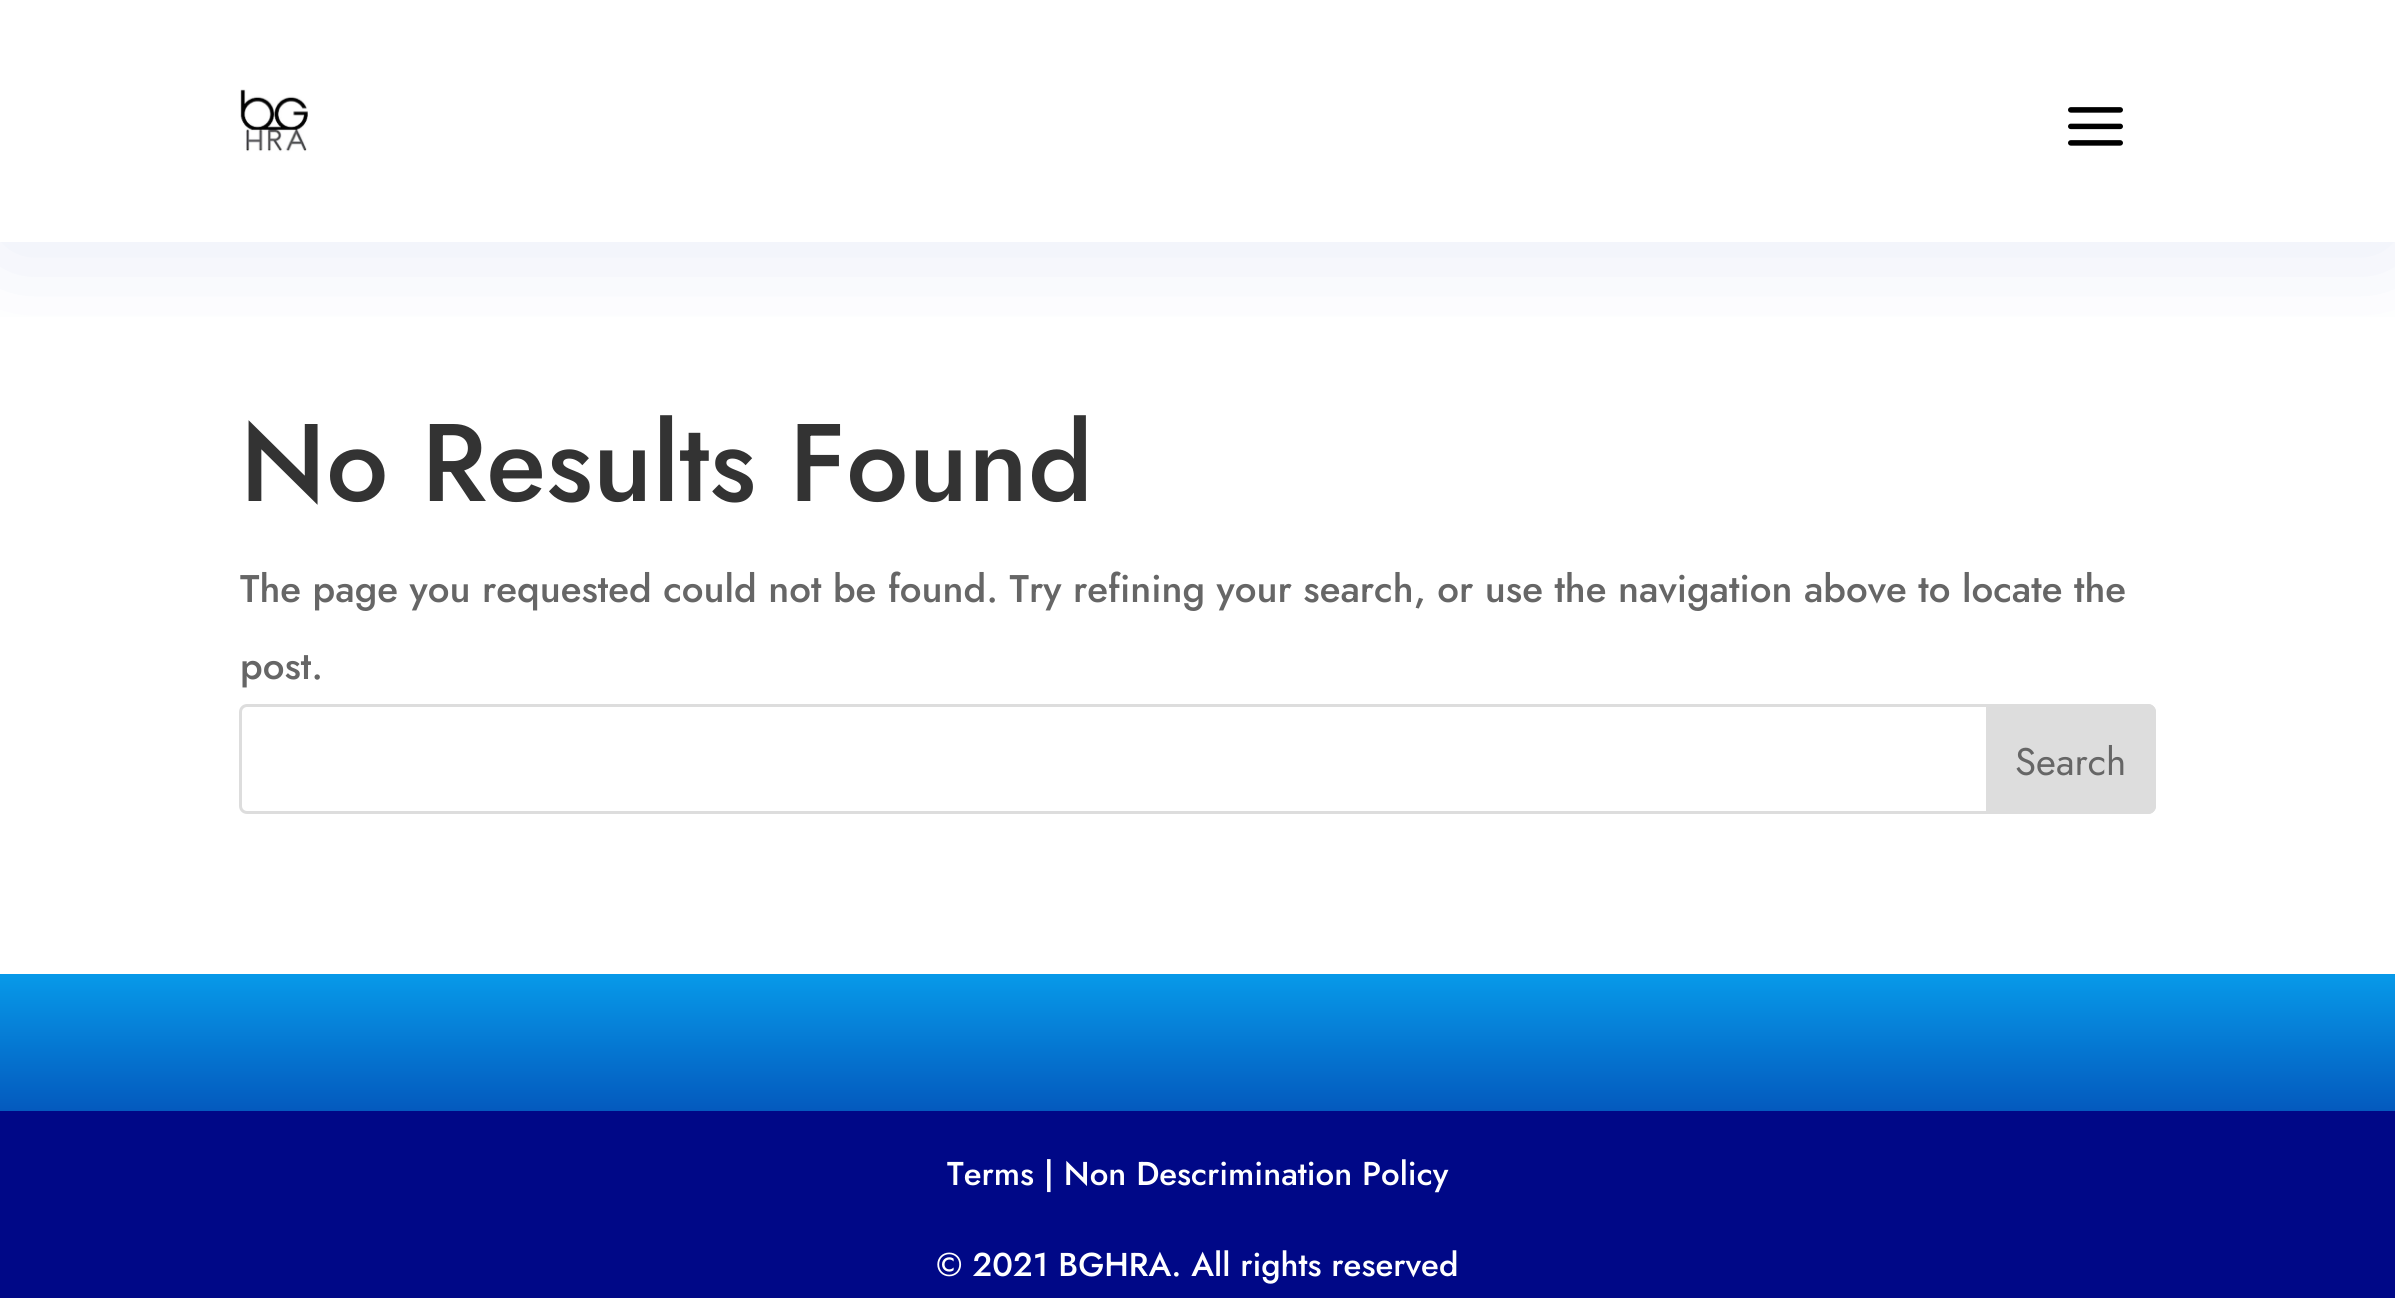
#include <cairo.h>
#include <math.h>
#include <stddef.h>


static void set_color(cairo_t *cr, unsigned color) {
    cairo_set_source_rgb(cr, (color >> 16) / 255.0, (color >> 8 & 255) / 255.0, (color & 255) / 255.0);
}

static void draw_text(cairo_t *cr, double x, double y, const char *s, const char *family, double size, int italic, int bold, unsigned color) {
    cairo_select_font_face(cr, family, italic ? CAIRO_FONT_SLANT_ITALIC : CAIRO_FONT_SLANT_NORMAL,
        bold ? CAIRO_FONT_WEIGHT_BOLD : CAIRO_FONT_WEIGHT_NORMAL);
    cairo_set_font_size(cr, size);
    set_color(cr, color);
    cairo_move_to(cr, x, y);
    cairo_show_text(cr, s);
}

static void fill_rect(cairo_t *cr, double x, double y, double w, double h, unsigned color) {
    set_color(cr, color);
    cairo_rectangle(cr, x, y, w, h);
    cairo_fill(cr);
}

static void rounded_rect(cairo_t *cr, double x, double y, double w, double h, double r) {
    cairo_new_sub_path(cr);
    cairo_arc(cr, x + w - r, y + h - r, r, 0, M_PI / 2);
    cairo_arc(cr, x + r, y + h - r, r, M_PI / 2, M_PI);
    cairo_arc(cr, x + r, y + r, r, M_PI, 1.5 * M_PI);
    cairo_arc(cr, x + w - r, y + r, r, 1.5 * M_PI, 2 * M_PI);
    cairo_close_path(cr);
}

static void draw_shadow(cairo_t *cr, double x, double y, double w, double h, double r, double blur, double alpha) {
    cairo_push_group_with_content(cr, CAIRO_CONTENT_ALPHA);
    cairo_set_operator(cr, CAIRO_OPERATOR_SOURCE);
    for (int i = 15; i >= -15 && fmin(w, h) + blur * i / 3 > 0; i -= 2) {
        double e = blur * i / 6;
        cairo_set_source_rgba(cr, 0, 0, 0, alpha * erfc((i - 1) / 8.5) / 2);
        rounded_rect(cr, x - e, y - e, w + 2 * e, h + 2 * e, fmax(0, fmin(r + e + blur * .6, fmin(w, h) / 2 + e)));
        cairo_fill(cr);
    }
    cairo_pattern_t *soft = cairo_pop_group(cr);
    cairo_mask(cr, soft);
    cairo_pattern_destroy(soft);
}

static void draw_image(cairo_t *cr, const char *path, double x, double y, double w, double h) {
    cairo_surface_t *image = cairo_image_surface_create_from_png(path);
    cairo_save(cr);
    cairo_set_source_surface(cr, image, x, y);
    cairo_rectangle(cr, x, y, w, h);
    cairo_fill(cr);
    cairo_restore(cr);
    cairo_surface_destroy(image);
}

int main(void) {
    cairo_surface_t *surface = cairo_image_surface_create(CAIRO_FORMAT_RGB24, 2395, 1298);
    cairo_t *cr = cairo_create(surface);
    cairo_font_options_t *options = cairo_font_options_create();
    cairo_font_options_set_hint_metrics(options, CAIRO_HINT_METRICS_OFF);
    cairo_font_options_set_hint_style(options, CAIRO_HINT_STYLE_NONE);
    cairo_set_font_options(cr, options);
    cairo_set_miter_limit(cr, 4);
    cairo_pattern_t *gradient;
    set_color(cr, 0xFFFFFF);
    cairo_paint(cr);
    cairo_save(cr);
    cairo_rectangle(cr, 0, 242, 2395, 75);
    cairo_clip(cr);
    set_color(cr, 0x6E82D0);
    draw_shadow(cr, 0, 6, 2395, 242, 0, 58, 0.17);
    cairo_restore(cr);
    draw_image(cr, "assets/img1.png", 240, 89, 68, 63);
    draw_image(cr, "assets/img2.png", 2068, 107, 55, 39);
    draw_text(cr, 240, 501, "No Results Found", "Jost Medium", 110, 0, 0, 0x333333);
    draw_text(cr, 240, 602, "The page you requested could not be found. Try refining your search, or use the navigation above to locate the", "Jost Medium", 38.5, 0, 0, 0x666666);
    draw_text(cr, 240, 679, "post.", "Jost Medium", 38.5, 0, 0, 0x666666);
    rounded_rect(cr, 240.5, 705.5, 1914, 107, 6.5);
    set_color(cr, 0xDDDDDD);
    cairo_set_line_width(cr, 3);
    cairo_stroke(cr);
    cairo_new_path(cr);
    cairo_move_to(cr, 1987.5, 705.5);
    cairo_line_to(cr, 2148, 705.5);
    cairo_curve_to(cr, 2151.5, 705.5, 2154.5, 708.5, 2154.5, 712);
    cairo_line_to(cr, 2154.5, 806);
    cairo_curve_to(cr, 2154.5, 809.5, 2151.5, 812.5, 2148, 812.5);
    cairo_line_to(cr, 1987.5, 812.5);
    cairo_close_path(cr);
    cairo_fill_preserve(cr);
    cairo_stroke(cr);
    draw_text(cr, 2015, 775, "Search", "Jost", 38.5, 0, 0, 0x666666);
    gradient = cairo_pattern_create_linear(1198, 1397, 1198, 973);
    cairo_pattern_add_color_stop_rgba(gradient, 0.26, 0, 0.031, 0.529, 1);
    cairo_pattern_add_color_stop_rgba(gradient, 1, 0.027, 0.604, 0.914, 1);
    cairo_set_source(cr, gradient);
    cairo_pattern_destroy(gradient);
    cairo_rectangle(cr, 0, 974, 2395, 137);
    cairo_fill(cr);
    fill_rect(cr, 0, 1111, 2395, 187, 0x000887);
    draw_text(cr, 947, 1185, "Terms | Non Descrimination Policy", "Jost Medium", 33, 0, 0, 0xFFFFFF);
    draw_text(cr, 936, 1276, "© 2021 BGHRA. All rights reserved", "Jost Medium", 33, 0, 0, 0xFFFFFF);
    cairo_surface_write_to_png(surface, "output.png");
    cairo_font_options_destroy(options);
    cairo_destroy(cr);
    cairo_surface_destroy(surface);
    return 0;
}
